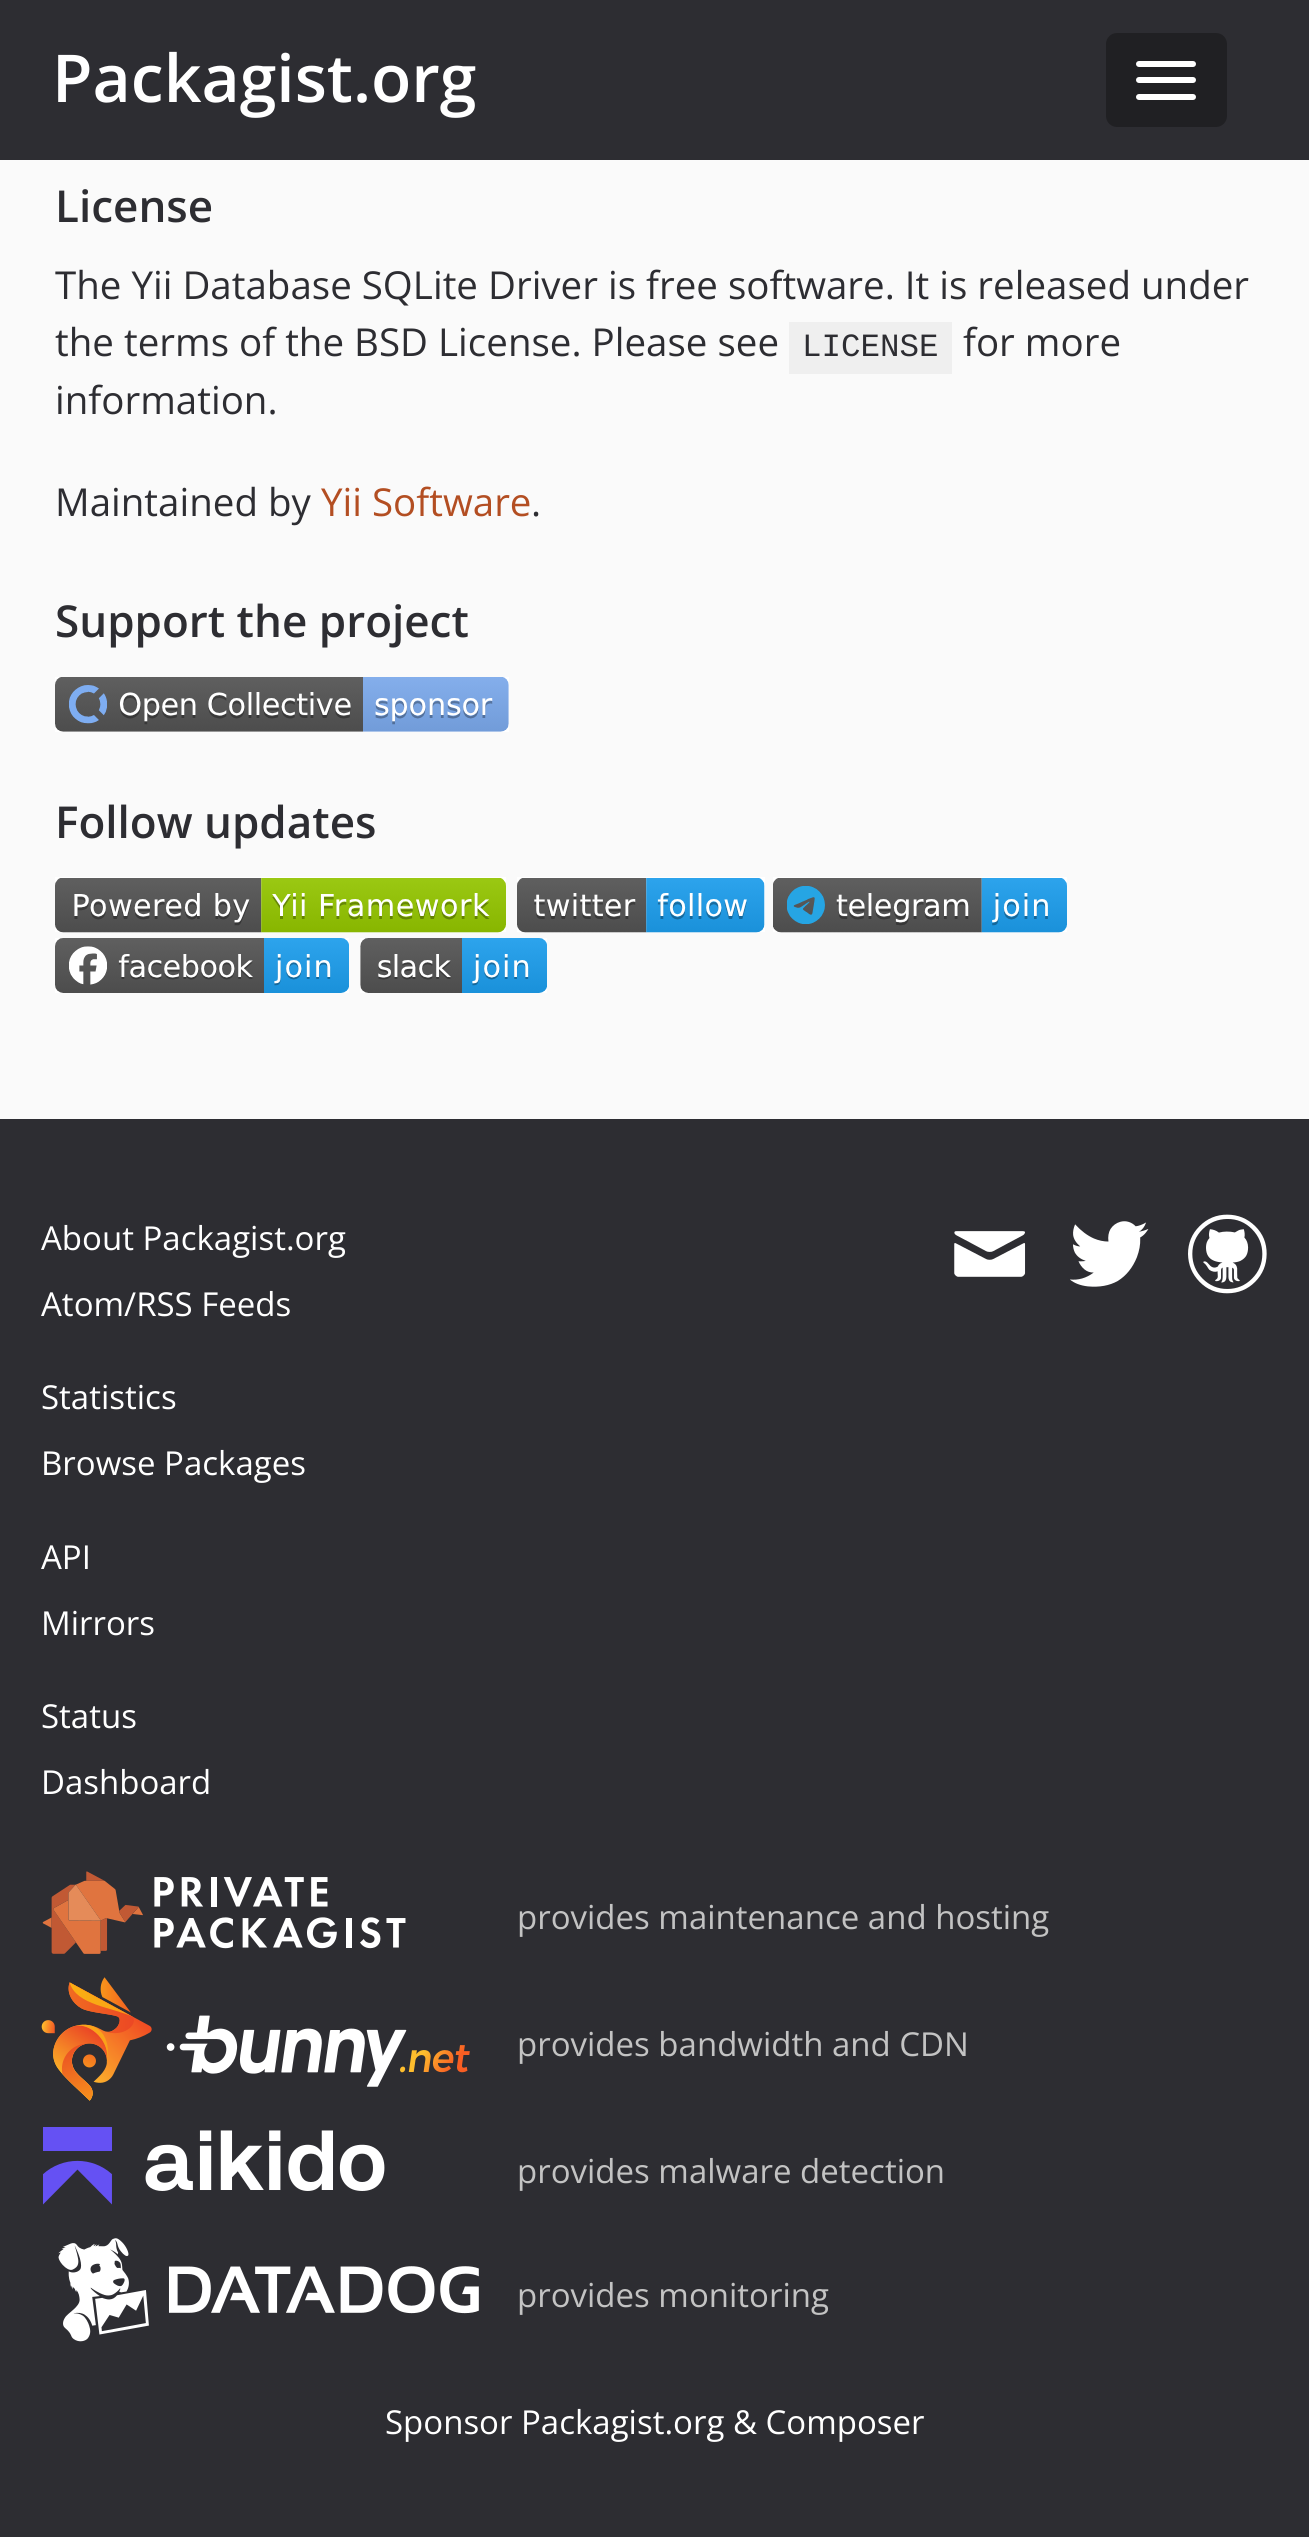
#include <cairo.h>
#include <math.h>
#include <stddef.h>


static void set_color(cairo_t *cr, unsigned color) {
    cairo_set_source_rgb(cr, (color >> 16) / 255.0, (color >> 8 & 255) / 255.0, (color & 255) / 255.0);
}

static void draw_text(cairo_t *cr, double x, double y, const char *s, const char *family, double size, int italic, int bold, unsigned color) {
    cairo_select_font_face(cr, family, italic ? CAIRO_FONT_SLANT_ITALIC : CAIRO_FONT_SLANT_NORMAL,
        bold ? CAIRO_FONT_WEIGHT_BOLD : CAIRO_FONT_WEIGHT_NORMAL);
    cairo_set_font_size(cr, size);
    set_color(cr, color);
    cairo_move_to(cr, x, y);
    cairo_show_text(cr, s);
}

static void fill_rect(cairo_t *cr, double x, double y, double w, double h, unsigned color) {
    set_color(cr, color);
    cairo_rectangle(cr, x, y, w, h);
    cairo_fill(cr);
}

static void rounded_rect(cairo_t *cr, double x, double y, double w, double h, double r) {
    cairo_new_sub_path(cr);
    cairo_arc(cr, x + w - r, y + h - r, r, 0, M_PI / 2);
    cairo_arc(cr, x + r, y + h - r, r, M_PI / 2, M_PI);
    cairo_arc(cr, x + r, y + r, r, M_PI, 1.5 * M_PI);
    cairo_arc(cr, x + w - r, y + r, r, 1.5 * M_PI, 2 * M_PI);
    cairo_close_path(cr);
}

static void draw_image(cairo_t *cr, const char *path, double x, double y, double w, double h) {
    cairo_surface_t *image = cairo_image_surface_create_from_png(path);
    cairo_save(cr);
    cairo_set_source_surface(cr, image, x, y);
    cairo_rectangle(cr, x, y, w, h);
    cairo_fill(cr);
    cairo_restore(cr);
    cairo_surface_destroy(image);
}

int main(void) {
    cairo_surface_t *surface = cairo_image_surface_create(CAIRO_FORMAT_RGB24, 1309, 2537);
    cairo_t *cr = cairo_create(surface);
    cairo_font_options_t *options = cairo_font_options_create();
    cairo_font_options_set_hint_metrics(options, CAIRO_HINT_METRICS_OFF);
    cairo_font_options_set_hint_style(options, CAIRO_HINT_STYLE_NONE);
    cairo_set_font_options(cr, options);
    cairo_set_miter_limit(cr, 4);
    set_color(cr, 0xFAFAFA);
    cairo_paint(cr);
    fill_rect(cr, 0, 0, 1309, 160, 0x2D2D32);
    draw_text(cr, 52, 102, "Packagist.org", "Open Sans SemiBold", 66, 0, 0, 0xFFFFFF);
    set_color(cr, 0x202023);
    rounded_rect(cr, 1106, 33, 121, 94, 11);
    cairo_fill(cr);
    set_color(cr, 0xFFFFFF);
    rounded_rect(cr, 1136, 61, 60, 6, 3);
    cairo_fill(cr);
    rounded_rect(cr, 1136, 77, 60, 6, 3);
    cairo_fill(cr);
    rounded_rect(cr, 1136, 94, 60, 6, 3);
    cairo_fill(cr);
    draw_text(cr, 55, 222, "License", "Open Sans SemiBold", 44, 0, 0, 0x2D2D32);
    draw_text(cr, 55, 299, "The Yii Database SQLite Driver is free software. It is released under", "Open Sans", 38.5, 0, 0, 0x2D2D32);
    draw_text(cr, 55, 356, "the terms of the BSD License. Please see", "Open Sans", 38.5, 0, 0, 0x2D2D32);
    fill_rect(cr, 789, 322, 163, 52, 0xEFEFEF);
    draw_text(cr, 802, 356, "LICENSE", "Liberation Mono", 32.5, 0, 0, 0x2D2D32);
    draw_text(cr, 963, 356, "for more", "Open Sans", 38.5, 0, 0, 0x2D2D32);
    draw_text(cr, 55, 414, "information.", "Open Sans", 38.5, 0, 0, 0x2D2D32);
    draw_text(cr, 55, 516, "Maintained by", "Open Sans", 38.5, 0, 0, 0x2D2D32);
    draw_text(cr, 321, 516, "Yii Software", "Open Sans", 38.5, 0, 0, 0xB34E22);
    draw_text(cr, 531, 516, ".", "Open Sans", 38.5, 0, 0, 0x2D2D32);
    draw_text(cr, 55, 637, "Support the project", "Open Sans SemiBold", 44, 0, 0, 0x2D2D32);
    fill_rect(cr, 55, 677, 454, 55, 0xFFFFFF);
    draw_image(cr, "assets/img1.png", 55, 677, 454, 55);
    draw_text(cr, 55, 838, "Follow updates", "Open Sans SemiBold", 44, 0, 0, 0x2D2D32);
    fill_rect(cr, 55, 877, 451, 55, 0xFFFFFF);
    fill_rect(cr, 517, 877, 248, 55, 0xFFFFFF);
    fill_rect(cr, 773, 877, 294, 55, 0xFFFFFF);
    draw_image(cr, "assets/img2.png", 55, 878, 451, 55);
    draw_image(cr, "assets/img3.png", 517, 878, 248, 55);
    draw_image(cr, "assets/img4.png", 773, 878, 294, 55);
    fill_rect(cr, 55, 938, 294, 55, 0xFFFFFF);
    draw_image(cr, "assets/img5.png", 55, 938, 294, 55);
    fill_rect(cr, 360, 938, 187, 55, 0xFFFFFF);
    draw_image(cr, "assets/img6.png", 360, 938, 187, 55);
    fill_rect(cr, 0, 1119, 1309, 1418, 0x2D2D32);
    draw_text(cr, 41, 1250, "About Packagist.org", "Open Sans", 33, 0, 0, 0xFFFFFF);
    draw_text(cr, 41, 1316, "Atom/RSS Feeds", "Open Sans", 33, 0, 0, 0xFFFFFF);
    draw_image(cr, "assets/img7.png", 954, 1231, 72, 46);
    draw_image(cr, "assets/img8.png", 1070, 1221, 79, 66);
    draw_image(cr, "assets/img9.png", 1188, 1214, 79, 80);
    draw_text(cr, 41, 1409, "Statistics", "Open Sans", 33, 0, 0, 0xFFFFFF);
    draw_text(cr, 41, 1475, "Browse Packages", "Open Sans", 33, 0, 0, 0xFFFFFF);
    draw_text(cr, 41, 1569, "API", "Open Sans", 33, 0, 0, 0xFFFFFF);
    draw_text(cr, 41, 1635, "Mirrors", "Open Sans", 33, 0, 0, 0xFFFFFF);
    draw_text(cr, 41, 1728, "Status", "Open Sans", 33, 0, 0, 0xFFFFFF);
    draw_text(cr, 41, 1794, "Dashboard", "Open Sans", 33, 0, 0, 0xFFFFFF);
    draw_image(cr, "assets/img10.png", 42, 1871, 364, 83);
    draw_text(cr, 517, 1929, "provides maintenance and hosting", "Open Sans", 33, 0, 0, 0xC3C3C3);
    draw_image(cr, "assets/img11.png", 41, 1977, 429, 124);
    draw_text(cr, 517, 2056, "provides bandwidth and CDN", "Open Sans", 33, 0, 0, 0xC3C3C3);
    draw_image(cr, "assets/img12.png", 43, 2127, 342, 78);
    draw_text(cr, 517, 2183, "provides malware detection", "Open Sans", 33, 0, 0, 0xC3C3C3);
    draw_image(cr, "assets/img13.png", 58, 2238, 421, 104);
    draw_text(cr, 517, 2307, "provides monitoring", "Open Sans", 33, 0, 0, 0xC3C3C3);
    draw_text(cr, 385, 2434, "Sponsor Packagist.org & Composer", "Open Sans", 33, 0, 0, 0xFFFFFF);
    cairo_surface_write_to_png(surface, "output.png");
    cairo_font_options_destroy(options);
    cairo_destroy(cr);
    cairo_surface_destroy(surface);
    return 0;
}
